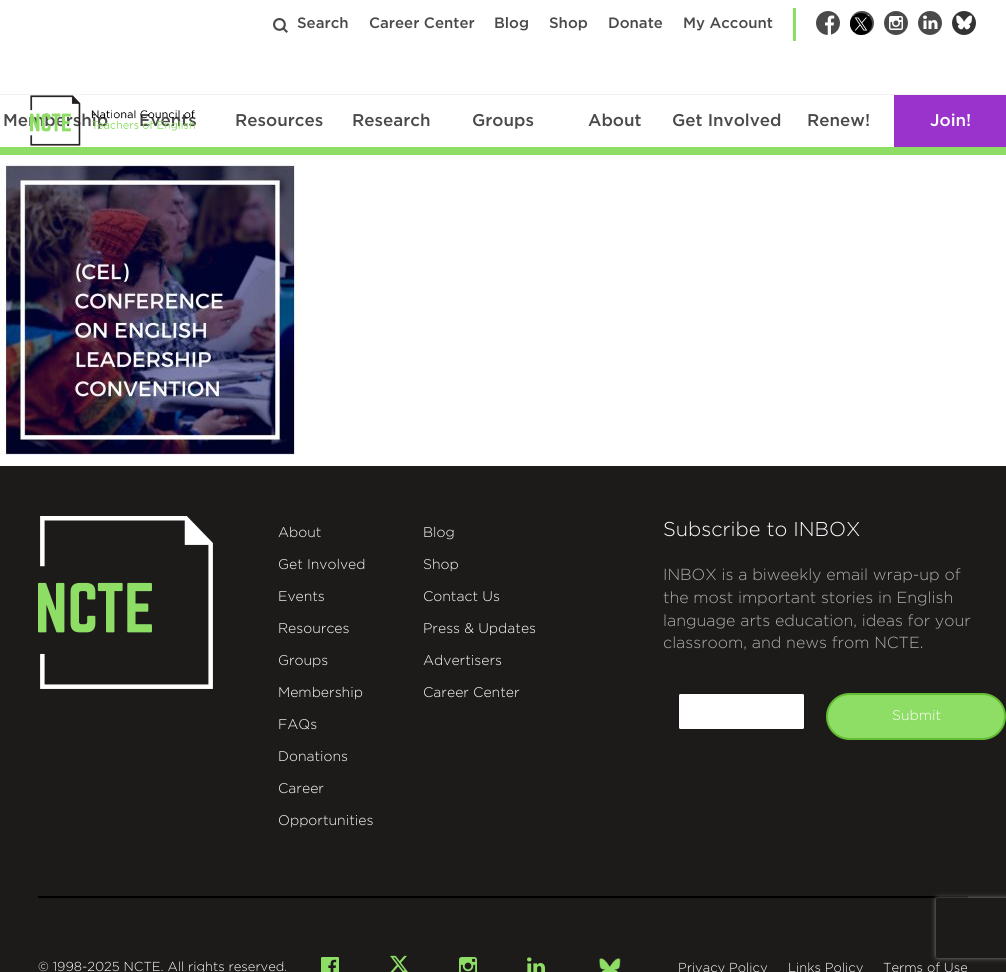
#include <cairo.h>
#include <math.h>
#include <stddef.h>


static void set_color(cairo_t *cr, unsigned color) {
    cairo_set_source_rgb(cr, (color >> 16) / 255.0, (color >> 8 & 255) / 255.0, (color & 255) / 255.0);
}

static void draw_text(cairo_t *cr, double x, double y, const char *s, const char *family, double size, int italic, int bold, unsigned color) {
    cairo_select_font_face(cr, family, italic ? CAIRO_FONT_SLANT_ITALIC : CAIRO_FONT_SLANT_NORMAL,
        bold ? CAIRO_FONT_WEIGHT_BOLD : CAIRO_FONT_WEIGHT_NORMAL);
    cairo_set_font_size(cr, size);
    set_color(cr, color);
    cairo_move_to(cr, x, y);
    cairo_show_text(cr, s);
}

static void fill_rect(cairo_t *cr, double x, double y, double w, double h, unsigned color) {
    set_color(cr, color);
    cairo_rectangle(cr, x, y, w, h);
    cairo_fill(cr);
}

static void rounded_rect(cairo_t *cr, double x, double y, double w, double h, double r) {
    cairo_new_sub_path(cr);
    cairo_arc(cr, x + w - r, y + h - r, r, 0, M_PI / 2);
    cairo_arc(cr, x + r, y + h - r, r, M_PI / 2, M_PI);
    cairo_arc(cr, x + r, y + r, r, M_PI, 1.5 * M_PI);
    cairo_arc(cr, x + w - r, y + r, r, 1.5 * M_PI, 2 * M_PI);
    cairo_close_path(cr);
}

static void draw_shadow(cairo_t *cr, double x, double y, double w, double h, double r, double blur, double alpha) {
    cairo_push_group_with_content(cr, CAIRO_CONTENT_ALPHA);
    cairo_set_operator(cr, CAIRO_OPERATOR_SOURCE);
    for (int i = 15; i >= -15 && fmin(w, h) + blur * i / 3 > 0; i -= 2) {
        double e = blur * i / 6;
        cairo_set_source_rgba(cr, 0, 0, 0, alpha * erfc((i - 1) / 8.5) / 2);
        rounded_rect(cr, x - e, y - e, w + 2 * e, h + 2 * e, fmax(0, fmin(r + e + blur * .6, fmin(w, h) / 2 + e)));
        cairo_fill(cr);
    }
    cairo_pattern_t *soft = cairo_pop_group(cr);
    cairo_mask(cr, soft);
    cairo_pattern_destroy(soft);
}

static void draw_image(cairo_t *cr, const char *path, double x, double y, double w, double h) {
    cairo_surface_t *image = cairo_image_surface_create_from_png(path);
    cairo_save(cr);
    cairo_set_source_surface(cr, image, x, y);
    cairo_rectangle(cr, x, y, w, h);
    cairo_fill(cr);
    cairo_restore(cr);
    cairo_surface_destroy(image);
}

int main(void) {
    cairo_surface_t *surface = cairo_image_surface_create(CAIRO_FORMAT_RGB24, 1006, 972);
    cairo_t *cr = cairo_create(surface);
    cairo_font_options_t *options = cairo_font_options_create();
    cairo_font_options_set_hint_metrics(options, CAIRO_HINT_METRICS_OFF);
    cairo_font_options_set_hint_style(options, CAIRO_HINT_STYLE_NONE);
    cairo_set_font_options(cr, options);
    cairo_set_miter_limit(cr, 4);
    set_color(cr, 0xFFFFFF);
    cairo_paint(cr);
    fill_rect(cr, 0, 147, 1006, 8, 0x8EDD65);
    fill_rect(cr, 793, 8, 3, 33, 0x8EDD65);
    draw_image(cr, "assets/img1.png", 273, 18, 15, 15);
    draw_text(cr, 297, 28, "Search", "Gotham Medium", 15, 0, 0, 0x4A4A4A);
    draw_text(cr, 369, 28, "Career Center", "Gotham Medium", 15, 0, 0, 0x4A4A4A);
    draw_text(cr, 494, 28, "Blog", "Gotham Medium", 15, 0, 0, 0x4A4A4A);
    draw_text(cr, 549, 28, "Shop", "Gotham Medium", 15, 0, 0, 0x4A4A4A);
    draw_text(cr, 608, 28, "Donate", "Gotham Medium", 15, 0, 0, 0x4A4A4A);
    draw_text(cr, 683, 28, "My Account", "Gotham Medium", 15, 0, 0, 0x4A4A4A);
    draw_image(cr, "assets/img2.png", 816, 11, 24, 24);
    draw_image(cr, "assets/img3.png", 850, 11, 24, 24);
    draw_image(cr, "assets/img4.png", 850, 13, 22, 22);
    draw_image(cr, "assets/img5.png", 884, 11, 24, 24);
    draw_image(cr, "assets/img6.png", 918, 11, 24, 24);
    set_color(cr, 0x333333);
    cairo_arc(cr, 964, 23, 12, 0, 2 * M_PI);
    cairo_fill(cr);
    draw_image(cr, "assets/img7.png", 956, 15, 16, 15);
    draw_text(cr, 3, 126, "Membership", "Gotham Medium", 17, 0, 0, 0x4A4A4A);
    draw_text(cr, 139, 126, "Events", "Gotham Medium", 17, 0, 0, 0x4A4A4A);
    draw_image(cr, "assets/img8.png", 30, 95, 165, 51);
    fill_rect(cr, 0, 94, 1006, 1, 0xF2F2F2);
    draw_text(cr, 235, 126, "Resources", "Gotham Medium", 17, 0, 0, 0x4A4A4A);
    draw_text(cr, 352, 126, "Research", "Gotham Medium", 17, 0, 0, 0x4A4A4A);
    draw_text(cr, 472, 126, "Groups", "Gotham Medium", 17, 0, 0, 0x4A4A4A);
    draw_text(cr, 588, 126, "About", "Gotham Medium", 17, 0, 0, 0x4A4A4A);
    draw_text(cr, 672, 126, "Get Involved", "Gotham Medium", 17, 0, 0, 0x4A4A4A);
    draw_text(cr, 807, 126, "Renew!", "Gotham Medium", 17, 0, 0, 0x4A4A4A);
    fill_rect(cr, 894, 95, 112, 52, 0x9933CC);
    draw_text(cr, 930, 126, "Join!", "Gotham Medium", 17, 0, 0, 0xFFFFFF);
    draw_image(cr, "assets/img9.png", 0, 160, 300, 295);
    fill_rect(cr, 0, 466, 1006, 506, 0x1D1A1A);
    fill_rect(cr, 38, 896, 930, 2, 0x000000);
    draw_image(cr, "assets/img10.png", 38, 516, 175, 173);
    draw_text(cr, 278, 537, "About", "Gotham Light", 14, 0, 0, 0xFFFFFF);
    draw_text(cr, 278, 569, "Get Involved", "Gotham Light", 14, 0, 0, 0xFFFFFF);
    draw_text(cr, 278, 601, "Events", "Gotham Light", 14, 0, 0, 0xFFFFFF);
    draw_text(cr, 278, 633, "Resources", "Gotham Light", 14, 0, 0, 0xFFFFFF);
    draw_text(cr, 278, 665, "Groups", "Gotham Light", 14, 0, 0, 0xFFFFFF);
    draw_text(cr, 278, 697, "Membership", "Gotham Light", 14, 0, 0, 0xFFFFFF);
    draw_text(cr, 278, 729, "FAQs", "Gotham Light", 14, 0, 0, 0xFFFFFF);
    draw_text(cr, 278, 761, "Donations", "Gotham Light", 14, 0, 0, 0xFFFFFF);
    draw_text(cr, 278, 793, "Career", "Gotham Light", 14, 0, 0, 0xFFFFFF);
    draw_text(cr, 278, 825, "Opportunities", "Gotham Light", 14, 0, 0, 0xFFFFFF);
    draw_text(cr, 423, 537, "Blog", "Gotham Light", 14, 0, 0, 0xFFFFFF);
    draw_text(cr, 423, 569, "Shop", "Gotham Light", 14, 0, 0, 0xFFFFFF);
    draw_text(cr, 423, 601, "Contact Us", "Gotham Light", 14, 0, 0, 0xFFFFFF);
    draw_text(cr, 423, 633, "Press & Updates", "Gotham Light", 14, 0, 0, 0xFFFFFF);
    draw_text(cr, 423, 665, "Advertisers", "Gotham Light", 14, 0, 0, 0xFFFFFF);
    draw_text(cr, 423, 697, "Career Center", "Gotham Light", 14, 0, 0, 0xFFFFFF);
    draw_text(cr, 663, 536, "Subscribe to INBOX", "Gotham Light", 20, 0, 0, 0xFFFFFF);
    draw_text(cr, 663, 580, "INBOX is a biweekly email wrap-up of", "Gotham Light", 16, 0, 0, 0xAFAFAF);
    draw_text(cr, 663, 603, "the most important stories in English", "Gotham Light", 16, 0, 0, 0xAFAFAF);
    draw_text(cr, 663, 626, "language arts education, ideas for your", "Gotham Light", 16, 0, 0, 0xAFAFAF);
    draw_text(cr, 663, 648, "classroom, and news from NCTE.", "Gotham Light", 16, 0, 0, 0xAFAFAF);
    set_color(cr, 0xFFFFFF);
    rounded_rect(cr, 678.5, 693.5, 126, 36, 2);
    cairo_fill_preserve(cr);
    set_color(cr, 0x191616);
    cairo_set_line_width(cr, 1);
    cairo_stroke(cr);
    set_color(cr, 0x8EDD65);
    rounded_rect(cr, 827, 694, 178, 45, 22.5);
    cairo_fill_preserve(cr);
    set_color(cr, 0x62BD33);
    cairo_set_line_width(cr, 2);
    cairo_stroke(cr);
    draw_text(cr, 892, 720, "Submit", "Gotham Light", 14, 0, 0, 0xFFFFFF);
    cairo_save(cr);
    cairo_set_fill_rule(cr, CAIRO_FILL_RULE_EVEN_ODD);
    cairo_new_path(cr);
    cairo_move_to(cr, 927, 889);
    cairo_line_to(cr, 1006, 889);
    cairo_line_to(cr, 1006, 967);
    cairo_line_to(cr, 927, 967);
    cairo_close_path(cr);
    cairo_move_to(cr, 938, 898);
    cairo_line_to(cr, 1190, 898);
    cairo_curve_to(cr, 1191, 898, 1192, 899, 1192, 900);
    cairo_line_to(cr, 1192, 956);
    cairo_curve_to(cr, 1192, 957, 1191, 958, 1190, 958);
    cairo_line_to(cr, 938, 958);
    cairo_curve_to(cr, 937, 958, 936, 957, 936, 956);
    cairo_line_to(cr, 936, 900);
    cairo_curve_to(cr, 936, 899, 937, 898, 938, 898);
    cairo_close_path(cr);
    cairo_clip(cr);
    set_color(cr, 0x808080);
    draw_shadow(cr, 936, 898, 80, 60, 2, 2.5, 1);
    cairo_restore(cr);
    draw_text(cr, 38, 971, "© 1998-2025 NCTE. All rights reserved.", "Gotham Light", 13, 0, 0, 0xFFFFFF);
    draw_image(cr, "assets/img11.png", 321, 957, 18, 15);
    draw_image(cr, "assets/img12.png", 390, 955, 18, 17);
    draw_image(cr, "assets/img13.png", 459, 957, 18, 15);
    draw_image(cr, "assets/img14.png", 527, 957, 18, 15);
    draw_image(cr, "assets/img15.png", 599, 958, 22, 14);
    draw_text(cr, 678, 972, "Privacy Policy", "Gotham Light", 13, 0, 0, 0xFFFFFF);
    draw_text(cr, 788, 972, "Links Policy", "Gotham Light", 13, 0, 0, 0xFFFFFF);
    draw_text(cr, 883, 972, "Terms of Use", "Gotham Light", 13, 0, 0, 0xFFFFFF);
    cairo_surface_write_to_png(surface, "output.png");
    cairo_font_options_destroy(options);
    cairo_destroy(cr);
    cairo_surface_destroy(surface);
    return 0;
}
